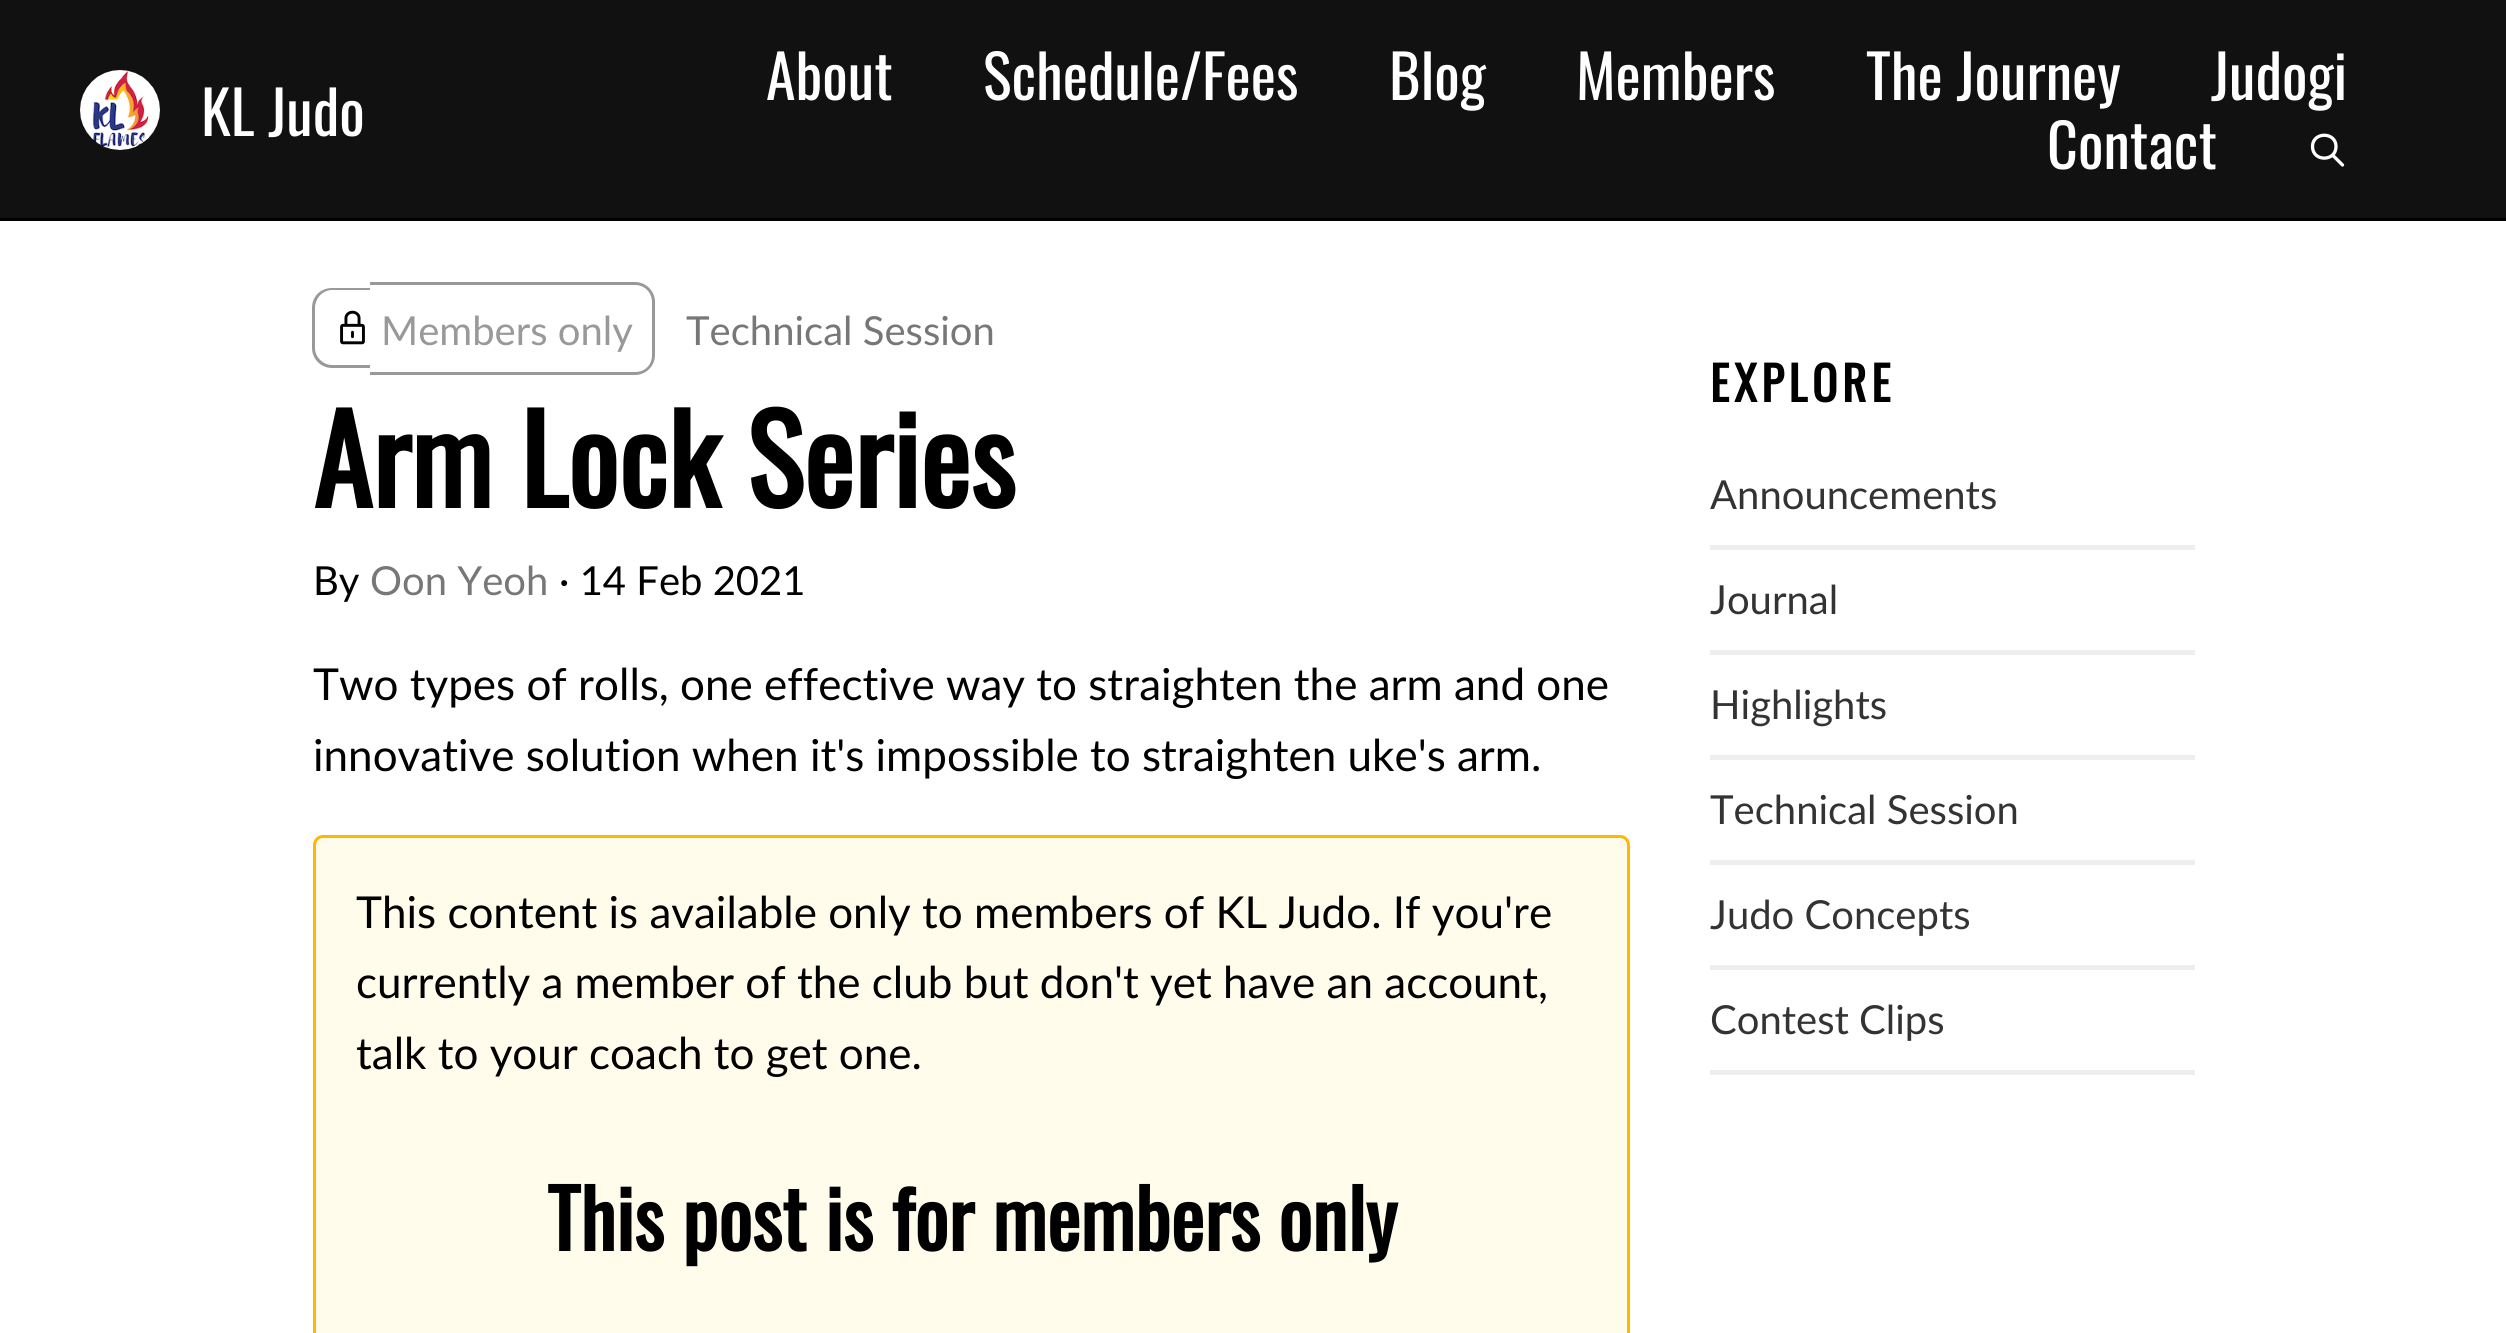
#include <cairo.h>
#include <math.h>
#include <stddef.h>


static void set_color(cairo_t *cr, unsigned color) {
    cairo_set_source_rgb(cr, (color >> 16) / 255.0, (color >> 8 & 255) / 255.0, (color & 255) / 255.0);
}

static void draw_text(cairo_t *cr, double x, double y, const char *s, const char *family, double size, int italic, int bold, unsigned color) {
    cairo_select_font_face(cr, family, italic ? CAIRO_FONT_SLANT_ITALIC : CAIRO_FONT_SLANT_NORMAL,
        bold ? CAIRO_FONT_WEIGHT_BOLD : CAIRO_FONT_WEIGHT_NORMAL);
    cairo_set_font_size(cr, size);
    set_color(cr, color);
    cairo_move_to(cr, x, y);
    cairo_show_text(cr, s);
}

static void draw_spaced(cairo_t *cr, double x, double y, const char *s, double letter, double word) {
    cairo_move_to(cr, x, y);
    while (*s) {
        char ch[5] = {0};
        int n = 0;
        do ch[n++] = *s++; while ((*s & 0xC0) == 0x80);
        cairo_show_text(cr, ch);
        cairo_rel_move_to(cr, letter + word * (*ch == ' '), 0);
    }
}

static void fill_rect(cairo_t *cr, double x, double y, double w, double h, unsigned color) {
    set_color(cr, color);
    cairo_rectangle(cr, x, y, w, h);
    cairo_fill(cr);
}

static void rounded_rect(cairo_t *cr, double x, double y, double w, double h, double r) {
    cairo_new_sub_path(cr);
    cairo_arc(cr, x + w - r, y + h - r, r, 0, M_PI / 2);
    cairo_arc(cr, x + r, y + h - r, r, M_PI / 2, M_PI);
    cairo_arc(cr, x + r, y + r, r, M_PI, 1.5 * M_PI);
    cairo_arc(cr, x + w - r, y + r, r, 1.5 * M_PI, 2 * M_PI);
    cairo_close_path(cr);
}

static void draw_image(cairo_t *cr, const char *path, double x, double y, double w, double h) {
    cairo_surface_t *image = cairo_image_surface_create_from_png(path);
    cairo_save(cr);
    cairo_set_source_surface(cr, image, x, y);
    cairo_rectangle(cr, x, y, w, h);
    cairo_fill(cr);
    cairo_restore(cr);
    cairo_surface_destroy(image);
}

int main(void) {
    cairo_surface_t *surface = cairo_image_surface_create(CAIRO_FORMAT_RGB24, 2506, 1333);
    cairo_t *cr = cairo_create(surface);
    cairo_font_options_t *options = cairo_font_options_create();
    cairo_font_options_set_hint_metrics(options, CAIRO_HINT_METRICS_OFF);
    cairo_font_options_set_hint_style(options, CAIRO_HINT_STYLE_NONE);
    cairo_set_font_options(cr, options);
    cairo_set_miter_limit(cr, 4);
    set_color(cr, 0xFFFFFF);
    cairo_paint(cr);
    fill_rect(cr, 0, 0, 2506, 218, 0x111111);
    fill_rect(cr, 0, 218, 2506, 3, 0x000000);
    draw_image(cr, "assets/img1.png", 80, 70, 80, 80);
    draw_text(cr, 201, 136, "KL Judo", "Oswald", 60, 0, 0, 0xFFFFFF);
    draw_text(cr, 766, 100, "About", "Oswald", 60, 0, 0, 0xFFFFFF);
    draw_text(cr, 983, 100, "Schedule/Fees", "Oswald", 60, 0, 0, 0xFFFFFF);
    draw_text(cr, 1389, 100, "Blog", "Oswald", 60, 0, 0, 0xFFFFFF);
    draw_text(cr, 1576, 100, "Members", "Oswald", 60, 0, 0, 0xFFFFFF);
    draw_text(cr, 1866, 100, "The Journey", "Oswald", 60, 0, 0, 0xFFFFFF);
    draw_text(cr, 2211, 100, "Judogi", "Oswald", 60, 0, 0, 0xFFFFFF);
    draw_text(cr, 2047, 169, "Contact", "Oswald", 60, 0, 0, 0xFFFFFF);
    cairo_new_path(cr);
    cairo_move_to(cr, 2342.5, 165);
    cairo_line_to(cr, 2332.5, 155);
    cairo_move_to(cr, 2336, 146.5);
    cairo_curve_to(cr, 2336, 162, 2312.5, 162, 2312.5, 146.5);
    cairo_curve_to(cr, 2312.5, 131.5, 2336, 131.5, 2336, 146.5);
    cairo_close_path(cr);
    cairo_set_line_width(cr, 3.3);
    cairo_set_line_cap(cr, CAIRO_LINE_CAP_ROUND);
    cairo_set_line_join(cr, CAIRO_LINE_JOIN_ROUND);
    cairo_stroke(cr);
    set_color(cr, 0x999999);
    cairo_set_fill_rule(cr, CAIRO_FILL_RULE_EVEN_ODD);
    cairo_new_path(cr);
    cairo_move_to(cr, 332, 288);
    cairo_line_to(cr, 370, 288);
    cairo_line_to(cr, 370, 368);
    cairo_line_to(cr, 332, 368);
    cairo_curve_to(cr, 321, 368, 312, 359, 312, 348);
    cairo_line_to(cr, 312, 308);
    cairo_curve_to(cr, 312, 296, 321, 288, 332, 288);
    cairo_close_path(cr);
    cairo_move_to(cr, 332, 290);
    cairo_line_to(cr, 370, 290);
    cairo_line_to(cr, 370, 365);
    cairo_line_to(cr, 332, 365);
    cairo_curve_to(cr, 323, 365, 315, 357, 315, 348);
    cairo_line_to(cr, 315, 308);
    cairo_curve_to(cr, 315, 298, 323, 290, 332, 290);
    cairo_close_path(cr);
    cairo_fill(cr);
    draw_image(cr, "assets/img2.png", 340, 310, 25, 35);
    cairo_new_path(cr);
    cairo_move_to(cr, 370, 282);
    cairo_line_to(cr, 635, 282);
    cairo_curve_to(cr, 646, 282, 655, 291, 655, 302);
    cairo_line_to(cr, 655, 355);
    cairo_curve_to(cr, 655, 366, 646, 375, 635, 375);
    cairo_line_to(cr, 370, 375);
    cairo_close_path(cr);
    cairo_move_to(cr, 370, 285);
    cairo_line_to(cr, 635, 285);
    cairo_curve_to(cr, 645, 285, 652, 293, 652, 302);
    cairo_line_to(cr, 652, 355);
    cairo_curve_to(cr, 652, 365, 645, 372, 635, 372);
    cairo_line_to(cr, 370, 372);
    cairo_close_path(cr);
    cairo_fill(cr);
    draw_text(cr, 381, 345, "Members only", "Lato", 40, 0, 0, 0x999999);
    draw_text(cr, 686, 345, "Technical Session", "Lato", 40, 0, 0, 0x777777);
    draw_text(cr, 313, 508, "Arm Lock Series", "Oswald", 120, 0, 1, 0x000000);
    draw_text(cr, 313, 595, "By", "Lato", 40, 0, 0, 0x000000);
    draw_text(cr, 370, 595, "Oon Yeoh", "Lato", 40, 0, 0, 0x777777);
    draw_text(cr, 559, 595, "· 14 Feb 2021", "Lato", 40, 0, 0, 0x000000);
    draw_text(cr, 313, 700, "Two types of rolls, one effective way to straighten the arm and one", "Lato", 44, 0, 0, 0x000000);
    draw_text(cr, 313, 771, "innovative solution when it's impossible to straighten uke's arm.", "Lato", 44, 0, 0, 0x000000);
    set_color(cr, 0xFFFCEB);
    rounded_rect(cr, 314.5, 836.5, 1314, 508, 8.5);
    cairo_fill_preserve(cr);
    set_color(cr, 0xFFB700);
    cairo_set_line_width(cr, 3);
    cairo_set_line_cap(cr, CAIRO_LINE_CAP_BUTT);
    cairo_set_line_join(cr, CAIRO_LINE_JOIN_MITER);
    cairo_stroke(cr);
    draw_text(cr, 356, 928, "This content is available only to members of KL Judo. If you're", "Lato", 44, 0, 0, 0x000000);
    draw_text(cr, 356, 998, "currently a member of the club but don't yet have an account,", "Lato", 44, 0, 0, 0x000000);
    draw_text(cr, 356, 1069, "talk to your coach to get one.", "Lato", 44, 0, 0, 0x000000);
    draw_text(cr, 547, 1251, "This post is for members only", "Oswald", 80, 0, 1, 0x000000);
    cairo_set_font_size(cr, 47);
    draw_spaced(cr, 1710, 402, "EXPLORE", 4.75, 0);
    fill_rect(cr, 1710, 545, 485, 5, 0xEEEEEE);
    draw_text(cr, 1710, 509, "Announcements", "Lato", 40, 0, 0, 0x333333);
    fill_rect(cr, 1710, 650, 485, 5, 0xEEEEEE);
    draw_text(cr, 1710, 614, "Journal", "Lato", 40, 0, 0, 0x333333);
    fill_rect(cr, 1710, 755, 485, 5, 0xEEEEEE);
    draw_text(cr, 1710, 719, "Highlights", "Lato", 40, 0, 0, 0x333333);
    fill_rect(cr, 1710, 860, 485, 5, 0xEEEEEE);
    draw_text(cr, 1710, 824, "Technical Session", "Lato", 40, 0, 0, 0x333333);
    fill_rect(cr, 1710, 965, 485, 5, 0xEEEEEE);
    draw_text(cr, 1710, 929, "Judo Concepts", "Lato", 40, 0, 0, 0x333333);
    fill_rect(cr, 1710, 1070, 485, 5, 0xEEEEEE);
    draw_text(cr, 1710, 1034, "Contest Clips", "Lato", 40, 0, 0, 0x333333);
    cairo_surface_write_to_png(surface, "output.png");
    cairo_font_options_destroy(options);
    cairo_destroy(cr);
    cairo_surface_destroy(surface);
    return 0;
}
